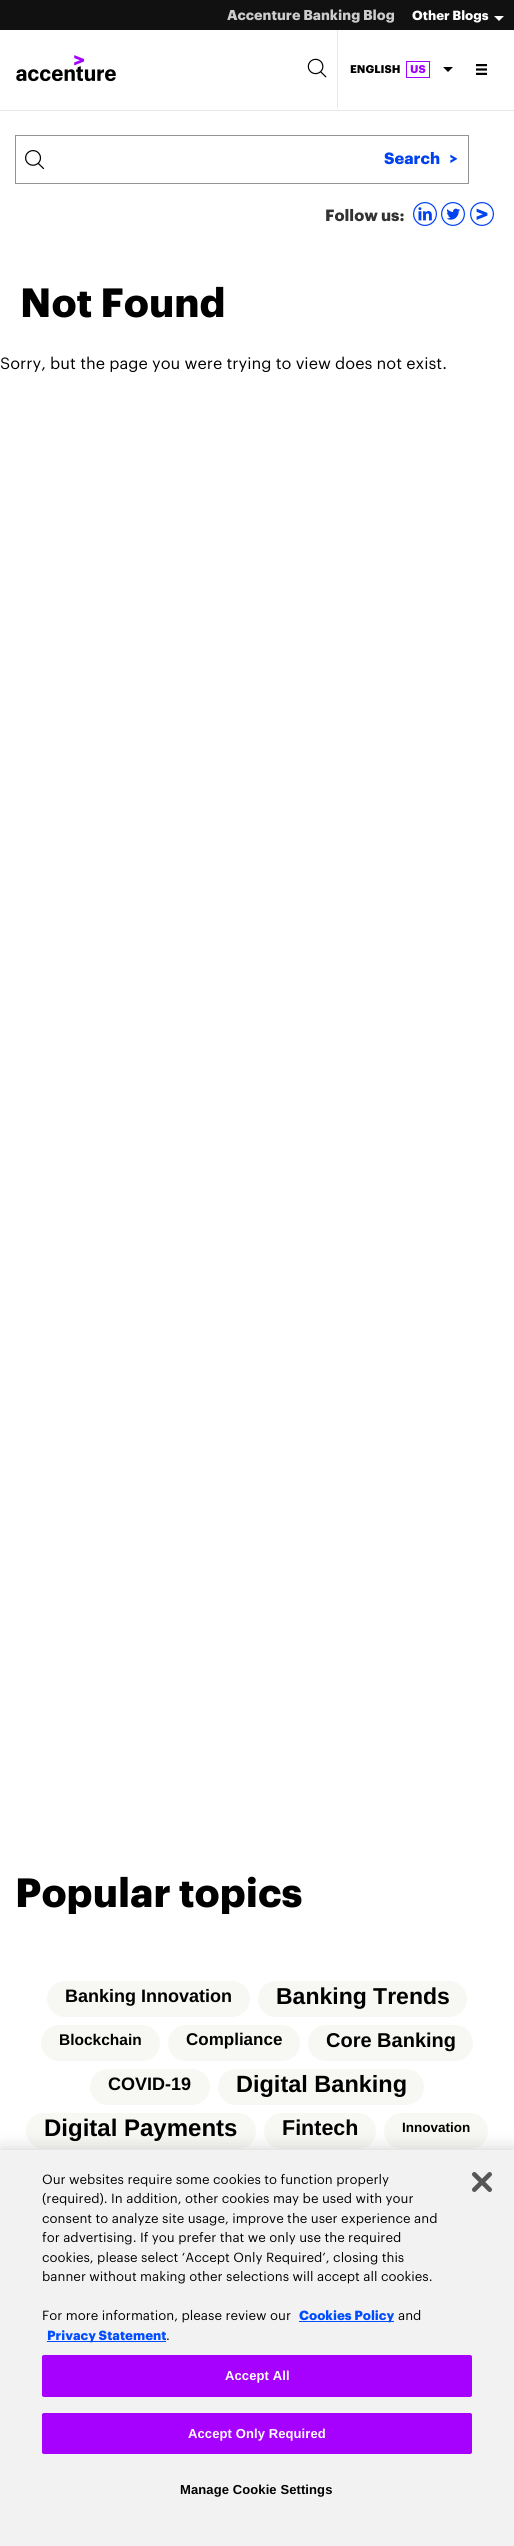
#include <cairo.h>
#include <math.h>
#include <stddef.h>


static void set_color(cairo_t *cr, unsigned color) {
    cairo_set_source_rgb(cr, (color >> 16) / 255.0, (color >> 8 & 255) / 255.0, (color & 255) / 255.0);
}

static void draw_text(cairo_t *cr, double x, double y, const char *s, const char *family, double size, int italic, int bold, unsigned color) {
    cairo_select_font_face(cr, family, italic ? CAIRO_FONT_SLANT_ITALIC : CAIRO_FONT_SLANT_NORMAL,
        bold ? CAIRO_FONT_WEIGHT_BOLD : CAIRO_FONT_WEIGHT_NORMAL);
    cairo_set_font_size(cr, size);
    set_color(cr, color);
    cairo_move_to(cr, x, y);
    cairo_show_text(cr, s);
}

static void draw_spaced(cairo_t *cr, double x, double y, const char *s, double letter, double word) {
    cairo_move_to(cr, x, y);
    while (*s) {
        char ch[5] = {0};
        int n = 0;
        do ch[n++] = *s++; while ((*s & 0xC0) == 0x80);
        cairo_show_text(cr, ch);
        cairo_rel_move_to(cr, letter + word * (*ch == ' '), 0);
    }
}

static void fill_rect(cairo_t *cr, double x, double y, double w, double h, unsigned color) {
    set_color(cr, color);
    cairo_rectangle(cr, x, y, w, h);
    cairo_fill(cr);
}

static void rounded_rect(cairo_t *cr, double x, double y, double w, double h, double r) {
    cairo_new_sub_path(cr);
    cairo_arc(cr, x + w - r, y + h - r, r, 0, M_PI / 2);
    cairo_arc(cr, x + r, y + h - r, r, M_PI / 2, M_PI);
    cairo_arc(cr, x + r, y + r, r, M_PI, 1.5 * M_PI);
    cairo_arc(cr, x + w - r, y + r, r, 1.5 * M_PI, 2 * M_PI);
    cairo_close_path(cr);
}

static void draw_shadow(cairo_t *cr, double x, double y, double w, double h, double r, double blur, double alpha) {
    cairo_push_group_with_content(cr, CAIRO_CONTENT_ALPHA);
    cairo_set_operator(cr, CAIRO_OPERATOR_SOURCE);
    for (int i = 15; i >= -15 && fmin(w, h) + blur * i / 3 > 0; i -= 2) {
        double e = blur * i / 6;
        cairo_set_source_rgba(cr, 0, 0, 0, alpha * erfc((i - 1) / 8.5) / 2);
        rounded_rect(cr, x - e, y - e, w + 2 * e, h + 2 * e, fmax(0, fmin(r + e + blur * .6, fmin(w, h) / 2 + e)));
        cairo_fill(cr);
    }
    cairo_pattern_t *soft = cairo_pop_group(cr);
    cairo_mask(cr, soft);
    cairo_pattern_destroy(soft);
}

static void draw_image(cairo_t *cr, const char *path, double x, double y, double w, double h) {
    cairo_surface_t *image = cairo_image_surface_create_from_png(path);
    cairo_save(cr);
    cairo_set_source_surface(cr, image, x, y);
    cairo_rectangle(cr, x, y, w, h);
    cairo_fill(cr);
    cairo_restore(cr);
    cairo_surface_destroy(image);
}

int main(void) {
    cairo_surface_t *surface = cairo_image_surface_create(CAIRO_FORMAT_RGB24, 514, 2546);
    cairo_t *cr = cairo_create(surface);
    cairo_font_options_t *options = cairo_font_options_create();
    cairo_font_options_set_hint_metrics(options, CAIRO_HINT_METRICS_OFF);
    cairo_font_options_set_hint_style(options, CAIRO_HINT_STYLE_NONE);
    cairo_set_font_options(cr, options);
    cairo_set_miter_limit(cr, 4);
    set_color(cr, 0xFFFFFF);
    cairo_paint(cr);
    fill_rect(cr, 0, 110, 514, 1, 0xE6E6E6);
    fill_rect(cr, 0, 0, 514, 30, 0x111111);
    draw_text(cr, 227, 20, "Accenture Banking Blog", "Graphik", 14, 0, 1, 0xCCCCCC);
    draw_text(cr, 412, 20, "Other Blogs", "Graphik", 13, 0, 1, 0xFFFFFF);
    cairo_new_path(cr);
    cairo_move_to(cr, 494, 16);
    cairo_line_to(cr, 504, 16);
    cairo_line_to(cr, 499, 21);
    cairo_close_path(cr);
    cairo_fill(cr);
    draw_image(cr, "assets/img1.png", 16, 55, 100, 27);
    set_color(cr, 0xE6E6E6);
    cairo_new_path(cr);
    cairo_move_to(cr, 338, 30);
    cairo_line_to(cr, 338, 110);
    cairo_line_to(cr, 337, 106);
    cairo_line_to(cr, 337, 30);
    cairo_close_path(cr);
    cairo_fill(cr);
    draw_image(cr, "assets/img2.png", 307, 58, 20, 20);
    draw_text(cr, 350, 73, "ENGLISH", "Graphik", 11, 0, 1, 0x000000);
    cairo_rectangle(cr, 406.5, 61.5, 23, 16);
    set_color(cr, 0xA100FF);
    cairo_set_line_width(cr, 1);
    cairo_stroke(cr);
    draw_text(cr, 410, 73, "US", "Graphik", 11, 0, 1, 0xA100FF);
    set_color(cr, 0x000000);
    cairo_new_path(cr);
    cairo_move_to(cr, 443, 67);
    cairo_line_to(cr, 453, 67);
    cairo_line_to(cr, 448, 72);
    cairo_close_path(cr);
    cairo_fill(cr);
    draw_image(cr, "assets/img3.png", 476, 64, 11, 11);
    fill_rect(cr, 15, 135, 454, 1, 0x949494);
    fill_rect(cr, 15, 183, 303, 1, 0x949494);
    fill_rect(cr, 15, 135, 1, 49, 0x949494);
    draw_image(cr, "assets/img4.png", 25, 150, 20, 20);
    fill_rect(cr, 468, 135, 1, 49, 0x949494);
    fill_rect(cr, 318, 183, 151, 1, 0x949494);
    draw_text(cr, 384, 164, "Search   >", "Graphik", 16, 0, 1, 0x0041F0);
    draw_text(cr, 325, 221, "Follow us:", "Graphik", 16, 0, 1, 0x333333);
    draw_image(cr, "assets/img5.png", 413, 202, 24, 24);
    draw_image(cr, "assets/img6.png", 441, 202, 24, 24);
    draw_image(cr, "assets/img7.png", 470, 202, 24, 24);
    draw_text(cr, 20, 317, "Not Found", "Graphik", 40, 0, 1, 0x000000);
    draw_text(cr, 0, 369, "Sorry, but the page you were trying to view does not exist.", "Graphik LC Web", 16, 0, 0, 0x000000);
    draw_text(cr, 15, 1907, "Popular topics", "Graphik", 40, 0, 1, 0x000000);
    set_color(cr, 0xF7F8F3);
    rounded_rect(cr, 47, 1981, 203, 36, 18);
    cairo_fill(cr);
    draw_text(cr, 65, 2002, "Banking Innovation", "Liberation Sans", 18, 0, 1, 0x000000);
    set_color(cr, 0xF7F8F3);
    rounded_rect(cr, 258, 1981, 209, 36, 18);
    cairo_fill(cr);
    draw_text(cr, 276, 2004, "Banking Trends", "Liberation Sans", 23, 0, 1, 0x000000);
    set_color(cr, 0xF7F8F3);
    rounded_rect(cr, 41, 2025, 119, 36, 18);
    cairo_fill(cr);
    draw_text(cr, 59, 2045, "Blockchain", "Liberation Sans", 15.5, 0, 1, 0x000000);
    set_color(cr, 0xF7F8F3);
    rounded_rect(cr, 168, 2025, 132, 36, 18);
    cairo_fill(cr);
    draw_text(cr, 186, 2045, "Compliance", "Liberation Sans", 17, 0, 1, 0x000000);
    set_color(cr, 0xF7F8F3);
    rounded_rect(cr, 308, 2025, 165, 36, 18);
    cairo_fill(cr);
    draw_text(cr, 326, 2047, "Core Banking", "Liberation Sans", 20, 0, 1, 0x000000);
    set_color(cr, 0xF7F8F3);
    rounded_rect(cr, 90, 2069, 120, 36, 18);
    cairo_fill(cr);
    draw_text(cr, 108, 2090, "COVID-19", "Liberation Sans", 18, 0, 1, 0x000000);
    set_color(cr, 0xF7F8F3);
    rounded_rect(cr, 218, 2069, 206, 36, 18);
    cairo_fill(cr);
    draw_text(cr, 236, 2092, "Digital Banking", "Liberation Sans", 23.5, 0, 1, 0x000000);
    set_color(cr, 0xF7F8F3);
    rounded_rect(cr, 26, 2113, 230, 36, 18);
    cairo_fill(cr);
    draw_text(cr, 44, 2136, "Digital Payments", "Liberation Sans", 24, 0, 1, 0x000000);
    set_color(cr, 0xF7F8F3);
    rounded_rect(cr, 264, 2113, 112, 36, 18);
    cairo_fill(cr);
    draw_text(cr, 282, 2135, "Fintech", "Liberation Sans", 21.5, 0, 1, 0x000000);
    set_color(cr, 0xF7F8F3);
    rounded_rect(cr, 384, 2113, 104, 36, 18);
    cairo_fill(cr);
    draw_text(cr, 402, 2132, "Innovation", "Liberation Sans", 13.5, 0, 1, 0x000000);
    set_color(cr, 0x000000);
    draw_shadow(cr, 0, 2150, 514, 396, 0, 9, 0.2);
    fill_rect(cr, 0, 2150, 514, 396, 0xF2F2F2);
    draw_text(cr, 42, 2184, "Our websites require some cookies to function properly", "Graphik LC Web", 13, 0, 0, 0x000000);
    draw_text(cr, 42, 2203, "(required). In addition, other cookies may be used with your", "Graphik LC Web", 13, 0, 0, 0x000000);
    draw_text(cr, 42, 2223, "consent to analyze site usage, improve the user experience and", "Graphik LC Web", 13, 0, 0, 0x000000);
    draw_text(cr, 42, 2242, "for advertising. If you prefer that we only use the required", "Graphik LC Web", 13, 0, 0, 0x000000);
    draw_text(cr, 42, 2262, "cookies, please select ‘Accept Only Required’, closing this", "Graphik LC Web", 13, 0, 0, 0x000000);
    draw_text(cr, 42, 2281, "banner without making other selections will accept all cookies.", "Graphik LC Web", 13, 0, 0, 0x000000);
    draw_text(cr, 42, 2320, "For more information, please review our", "Graphik LC Web", 13, 0, 0, 0x000000);
    fill_rect(cr, 299, 2321, 95, 1, 0x004DFF);
    draw_text(cr, 299, 2320, "Cookies Policy", "Graphik", 13, 0, 1, 0x004DFF);
    draw_text(cr, 398, 2320, "and", "Graphik LC Web", 13, 0, 0, 0x000000);
    fill_rect(cr, 47, 2341, 119, 1, 0x004DFF);
    draw_text(cr, 47, 2340, "Privacy Statement", "Graphik", 13, 0, 1, 0x004DFF);
    draw_text(cr, 166, 2340, ".", "Graphik LC Web", 13, 0, 0, 0x000000);
    set_color(cr, 0xA600FF);
    rounded_rect(cr, 42.5, 2355.5, 429, 41, 1.5);
    cairo_fill_preserve(cr);
    cairo_stroke(cr);
    cairo_select_font_face(cr, "Liberation Sans", CAIRO_FONT_SLANT_NORMAL, CAIRO_FONT_WEIGHT_BOLD);
    set_color(cr, 0xFFFFFF);
    draw_spaced(cr, 225, 2380, "Accept All", 0.1, 0);
    set_color(cr, 0xA600FF);
    rounded_rect(cr, 42.5, 2413.5, 429, 40, 1.5);
    cairo_fill_preserve(cr);
    cairo_stroke(cr);
    set_color(cr, 0xFFFFFF);
    draw_spaced(cr, 188, 2438, "Accept Only Required", 0.1, 0);
    set_color(cr, 0x000000);
    draw_spaced(cr, 180, 2494, "Manage Cookie Settings", 0.1, 0);
    draw_image(cr, "assets/img8.png", 472, 2172, 20, 20);
    cairo_surface_write_to_png(surface, "output.png");
    cairo_font_options_destroy(options);
    cairo_destroy(cr);
    cairo_surface_destroy(surface);
    return 0;
}
